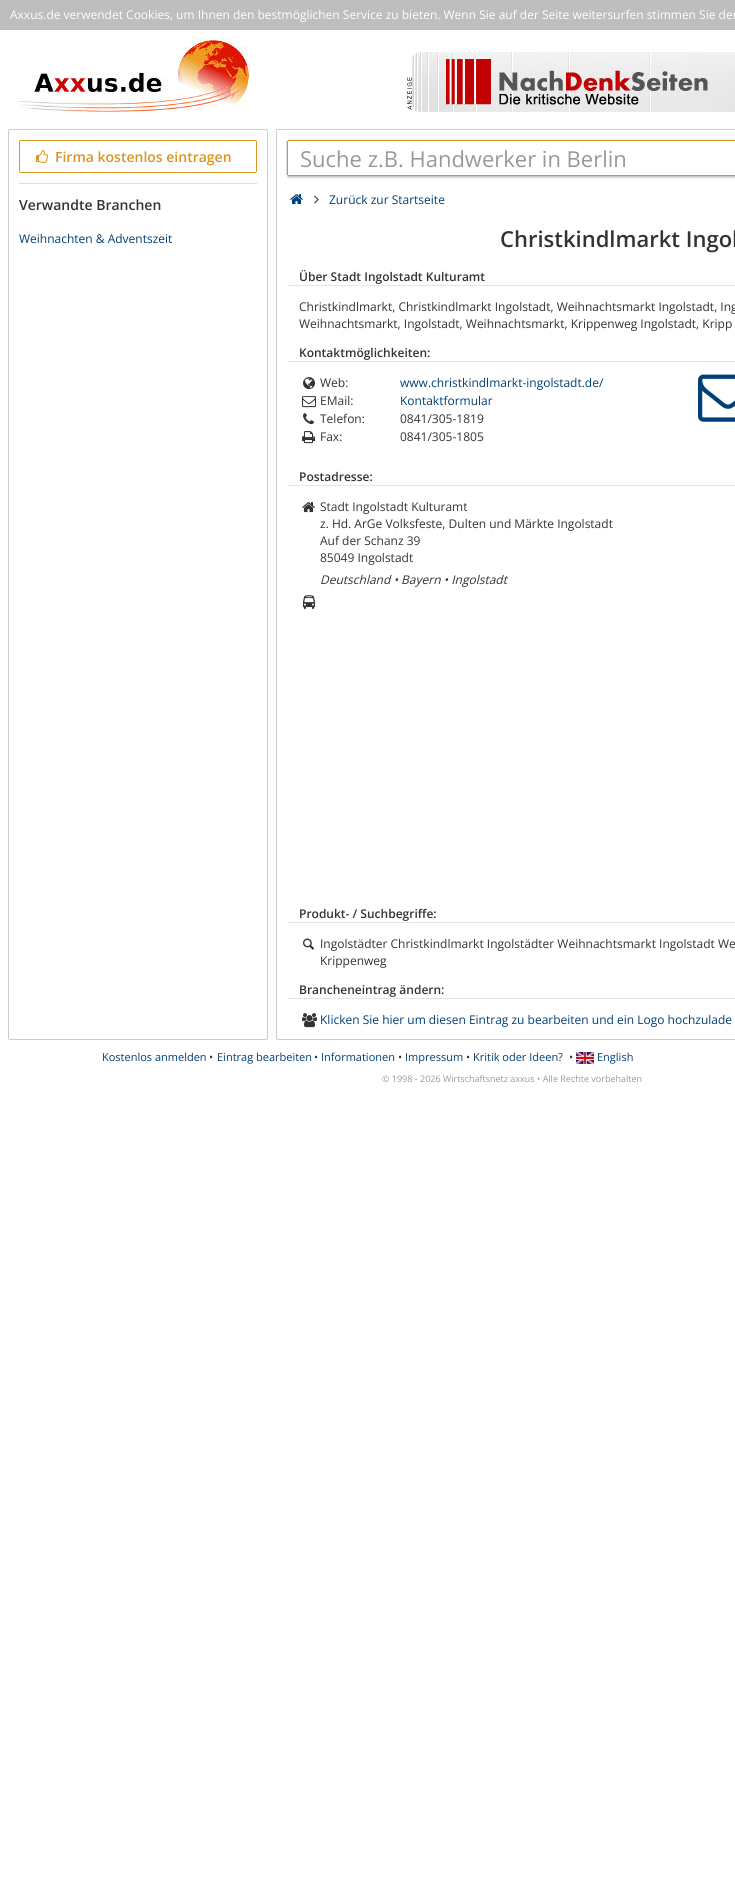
#include <cairo.h>
#include <math.h>
#include <stddef.h>


static void set_color(cairo_t *cr, unsigned color) {
    cairo_set_source_rgb(cr, (color >> 16) / 255.0, (color >> 8 & 255) / 255.0, (color & 255) / 255.0);
}

static void draw_text(cairo_t *cr, double x, double y, const char *s, const char *family, double size, int italic, int bold, unsigned color) {
    cairo_select_font_face(cr, family, italic ? CAIRO_FONT_SLANT_ITALIC : CAIRO_FONT_SLANT_NORMAL,
        bold ? CAIRO_FONT_WEIGHT_BOLD : CAIRO_FONT_WEIGHT_NORMAL);
    cairo_set_font_size(cr, size);
    set_color(cr, color);
    cairo_move_to(cr, x, y);
    cairo_show_text(cr, s);
}

static void fill_rect(cairo_t *cr, double x, double y, double w, double h, unsigned color) {
    set_color(cr, color);
    cairo_rectangle(cr, x, y, w, h);
    cairo_fill(cr);
}

static void rounded_rect(cairo_t *cr, double x, double y, double w, double h, double r) {
    cairo_new_sub_path(cr);
    cairo_arc(cr, x + w - r, y + h - r, r, 0, M_PI / 2);
    cairo_arc(cr, x + r, y + h - r, r, M_PI / 2, M_PI);
    cairo_arc(cr, x + r, y + r, r, M_PI, 1.5 * M_PI);
    cairo_arc(cr, x + w - r, y + r, r, 1.5 * M_PI, 2 * M_PI);
    cairo_close_path(cr);
}

static void draw_shadow(cairo_t *cr, double x, double y, double w, double h, double r, double blur, double alpha) {
    cairo_push_group_with_content(cr, CAIRO_CONTENT_ALPHA);
    cairo_set_operator(cr, CAIRO_OPERATOR_SOURCE);
    for (int i = 15; i >= -15 && fmin(w, h) + blur * i / 3 > 0; i -= 2) {
        double e = blur * i / 6;
        cairo_set_source_rgba(cr, 0, 0, 0, alpha * erfc((i - 1) / 8.5) / 2);
        rounded_rect(cr, x - e, y - e, w + 2 * e, h + 2 * e, fmax(0, fmin(r + e + blur * .6, fmin(w, h) / 2 + e)));
        cairo_fill(cr);
    }
    cairo_pattern_t *soft = cairo_pop_group(cr);
    cairo_mask(cr, soft);
    cairo_pattern_destroy(soft);
}

static void draw_image(cairo_t *cr, const char *path, double x, double y, double w, double h) {
    cairo_surface_t *image = cairo_image_surface_create_from_png(path);
    cairo_save(cr);
    cairo_set_source_surface(cr, image, x, y);
    cairo_rectangle(cr, x, y, w, h);
    cairo_fill(cr);
    cairo_restore(cr);
    cairo_surface_destroy(image);
}

int main(void) {
    cairo_surface_t *surface = cairo_image_surface_create(CAIRO_FORMAT_RGB24, 735, 1892);
    cairo_t *cr = cairo_create(surface);
    cairo_font_options_t *options = cairo_font_options_create();
    cairo_font_options_set_hint_metrics(options, CAIRO_HINT_METRICS_OFF);
    cairo_font_options_set_hint_style(options, CAIRO_HINT_STYLE_NONE);
    cairo_set_font_options(cr, options);
    cairo_set_miter_limit(cr, 4);
    set_color(cr, 0xFFFFFF);
    cairo_paint(cr);
    fill_rect(cr, 0, 0, 735, 30, 0xBEBEBE);
    draw_text(cr, 10, 19, "Axxus.de verwendet Cookies, um Ihnen den bestmöglichen Service zu bieten. Wenn Sie auf der Seite weitersurfen stimmen Sie der", "Open Sans", 12, 0, 0, 0xFFFFFF);
    draw_image(cr, "assets/img1.png", 16, 38, 234, 74);
    draw_image(cr, "assets/img2.png", 407, 77, 5, 33);
    draw_image(cr, "assets/img3.png", 412, 52, 323, 60);
    rounded_rect(cr, 8.5, 129.5, 259, 910, 1.5);
    set_color(cr, 0xCCCCCC);
    cairo_set_line_width(cr, 1);
    cairo_stroke(cr);
    rounded_rect(cr, 19.5, 140.5, 237, 32, 1.5);
    set_color(cr, 0xD9951D);
    cairo_stroke(cr);
    draw_image(cr, "assets/img4.png", 36, 150, 12, 14);
    draw_text(cr, 55, 162, "Firma kostenlos eintragen", "Open Sans SemiBold", 14, 0, 0, 0xD9951D);
    fill_rect(cr, 19, 183, 238, 1, 0xDDDDDD);
    draw_text(cr, 19, 210, "Verwandte Branchen", "Open Sans SemiBold", 14, 0, 0, 0x333333);
    draw_text(cr, 19, 243, "Weihnachten & Adventszeit", "Open Sans", 12, 0, 0, 0x004078);
    rounded_rect(cr, 276.5, 129.5, 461, 910, 1.5);
    set_color(cr, 0xCCCCCC);
    cairo_stroke(cr);
    fill_rect(cr, 277, 130, 1, 1, 0xFFFFFF);
    cairo_new_path(cr);
    cairo_move_to(cr, 289, 139.5);
    cairo_line_to(cr, 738.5, 139.5);
    cairo_line_to(cr, 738.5, 176.5);
    cairo_line_to(cr, 289, 176.5);
    cairo_curve_to(cr, 287.5, 176.5, 286.5, 175.5, 286.5, 174);
    cairo_line_to(cr, 286.5, 142);
    cairo_curve_to(cr, 286.5, 140.5, 287.5, 139.5, 289, 139.5);
    cairo_close_path(cr);
    set_color(cr, 0xEBEBEB);
    cairo_stroke(cr);
    cairo_save(cr);
    cairo_set_fill_rule(cr, CAIRO_FILL_RULE_EVEN_ODD);
    cairo_new_path(cr);
    cairo_move_to(cr, 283, 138);
    cairo_line_to(cr, 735, 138);
    cairo_line_to(cr, 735, 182);
    cairo_line_to(cr, 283, 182);
    cairo_close_path(cr);
    cairo_move_to(cr, 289, 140);
    cairo_line_to(cr, 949, 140);
    cairo_line_to(cr, 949, 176);
    cairo_line_to(cr, 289, 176);
    cairo_curve_to(cr, 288, 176, 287, 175, 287, 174);
    cairo_line_to(cr, 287, 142);
    cairo_curve_to(cr, 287, 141, 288, 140, 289, 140);
    cairo_close_path(cr);
    cairo_clip(cr);
    set_color(cr, 0x000000);
    draw_shadow(cr, 287, 142, 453, 36, 2, 1, 0.16);
    cairo_restore(cr);
    fill_rect(cr, 288, 140, 447, 1, 0xD9951D);
    fill_rect(cr, 288, 175, 447, 1, 0xD9951D);
    fill_rect(cr, 287, 141, 1, 34, 0xD9951D);
    draw_text(cr, 300, 167, "Suche z.B. Handwerker in Berlin", "Open Sans", 22, 0, 0, 0x999999);
    draw_image(cr, "assets/img5.png", 290, 194, 13, 11);
    draw_image(cr, "assets/img6.png", 314, 195, 5, 9);
    draw_text(cr, 329, 204, "Zurück zur Startseite", "Open Sans", 12, 0, 0, 0x004078);
    draw_text(cr, 500, 247, "Christkindlmarkt Ingol", "Open Sans SemiBold", 22, 0, 0, 0x333333);
    draw_text(cr, 299, 281, "Über Stadt Ingolstadt Kulturamt", "Open Sans SemiBold", 12, 0, 0, 0x333333);
    fill_rect(cr, 287, 285, 448, 1, 0xE5E5E5);
    draw_text(cr, 299, 311, "Christkindlmarkt, Christkindlmarkt Ingolstadt, Weihnachtsmarkt Ingolstadt, Ing", "Open Sans", 12, 0, 0, 0x333333);
    draw_text(cr, 299, 328, "Weihnachtsmarkt, Ingolstadt, Weihnachtsmarkt, Krippenweg Ingolstadt, Kripp", "Open Sans", 12, 0, 0, 0x333333);
    draw_text(cr, 299, 357, "Kontaktmöglichkeiten:", "Open Sans SemiBold", 12, 0, 0, 0x333333);
    fill_rect(cr, 287, 361, 448, 1, 0xE5E5E5);
    draw_image(cr, "assets/img7.png", 303, 377, 12, 13);
    draw_text(cr, 320, 387, "Web:", "Open Sans", 12, 0, 0, 0x333333);
    draw_text(cr, 400, 387, "www.christkindlmarkt-ingolstadt.de/", "Open Sans", 12, 0, 0, 0x004078);
    draw_image(cr, "assets/img8.png", 302, 396, 14, 12);
    draw_text(cr, 320, 405, "EMail:", "Open Sans", 12, 0, 0, 0x333333);
    draw_text(cr, 400, 405, "Kontaktformular", "Open Sans", 12, 0, 0, 0x004078);
    draw_image(cr, "assets/img9.png", 303, 413, 11, 12);
    draw_text(cr, 320, 423, "Telefon:", "Open Sans", 12, 0, 0, 0x333333);
    draw_text(cr, 400, 423, "0841/305-1819", "Open Sans", 12, 0, 0, 0x333333);
    draw_image(cr, "assets/img10.png", 302, 431, 13, 13);
    draw_text(cr, 320, 441, "Fax:", "Open Sans", 12, 0, 0, 0x333333);
    draw_text(cr, 400, 441, "0841/305-1805", "Open Sans", 12, 0, 0, 0x333333);
    draw_image(cr, "assets/img11.png", 698, 374, 37, 48);
    draw_text(cr, 299, 481, "Postadresse:", "Open Sans SemiBold", 12, 0, 0, 0x333333);
    fill_rect(cr, 287, 485, 448, 1, 0xE5E5E5);
    draw_image(cr, "assets/img12.png", 302, 502, 13, 11);
    draw_text(cr, 320, 511, "Stadt Ingolstadt Kulturamt", "Open Sans", 12, 0, 0, 0x333333);
    draw_text(cr, 320, 528, "z. Hd. ArGe Volksfeste, Dulten und Märkte Ingolstadt", "Open Sans", 12, 0, 0, 0x333333);
    draw_text(cr, 320, 545, "Auf der Schanz 39", "Open Sans", 12, 0, 0, 0x333333);
    draw_text(cr, 320, 562, "85049 Ingolstadt", "Open Sans", 12, 0, 0, 0x333333);
    draw_text(cr, 320, 584, "Deutschland • Bayern • Ingolstadt", "Open Sans", 12, 1, 0, 0x333333);
    draw_image(cr, "assets/img13.png", 303, 595, 12, 15);
    draw_text(cr, 299, 918, "Produkt- / Suchbegriffe:", "Open Sans SemiBold", 12, 0, 0, 0x333333);
    fill_rect(cr, 287, 922, 448, 1, 0xE5E5E5);
    draw_image(cr, "assets/img14.png", 303, 938, 11, 12);
    draw_text(cr, 320, 948, "Ingolstädter Christkindlmarkt Ingolstädter Weihnachtsmarkt Ingolstadt We", "Open Sans", 12, 0, 0, 0x333333);
    draw_text(cr, 320, 965, "Krippenweg", "Open Sans", 12, 0, 0, 0x333333);
    draw_text(cr, 299, 994, "Brancheneintrag ändern:", "Open Sans SemiBold", 12, 0, 0, 0x333333);
    fill_rect(cr, 287, 998, 448, 1, 0xE5E5E5);
    draw_image(cr, "assets/img15.png", 302, 1013, 15, 15);
    draw_text(cr, 320, 1024, "Klicken Sie hier um diesen Eintrag zu bearbeiten und ein Logo hochzulade", "Open Sans", 12, 0, 0, 0x004078);
    draw_text(cr, 102, 1061, "Kostenlos anmelden", "Open Sans", 11, 0, 0, 0x004078);
    draw_text(cr, 209, 1061, "•", "Open Sans", 11, 0, 0, 0x333333);
    draw_text(cr, 217, 1061, "Eintrag bearbeiten", "Open Sans", 11, 0, 0, 0x004078);
    draw_text(cr, 314, 1061, "•", "Open Sans", 11, 0, 0, 0x333333);
    draw_text(cr, 321, 1061, "Informationen", "Open Sans", 11, 0, 0, 0x004078);
    draw_text(cr, 398, 1061, "•", "Open Sans", 11, 0, 0, 0x333333);
    draw_text(cr, 405, 1061, "Impressum", "Open Sans", 11, 0, 0, 0x004078);
    draw_text(cr, 466, 1061, "•", "Open Sans", 11, 0, 0, 0x333333);
    draw_text(cr, 473, 1061, "Kritik oder Ideen?", "Open Sans", 11, 0, 0, 0x004078);
    draw_text(cr, 569, 1061, "•", "Open Sans", 11, 0, 0, 0x333333);
    draw_image(cr, "assets/img16.png", 576, 1052, 18, 12);
    draw_text(cr, 597, 1061, "English", "Open Sans", 11, 0, 0, 0x004078);
    draw_text(cr, 382, 1082, "© 1998 - 2026 Wirtschaftsnetz axxus • Alle Rechte vorbehalten", "Open Sans", 9, 0, 0, 0x999999);
    cairo_surface_write_to_png(surface, "output.png");
    cairo_font_options_destroy(options);
    cairo_destroy(cr);
    cairo_surface_destroy(surface);
    return 0;
}
